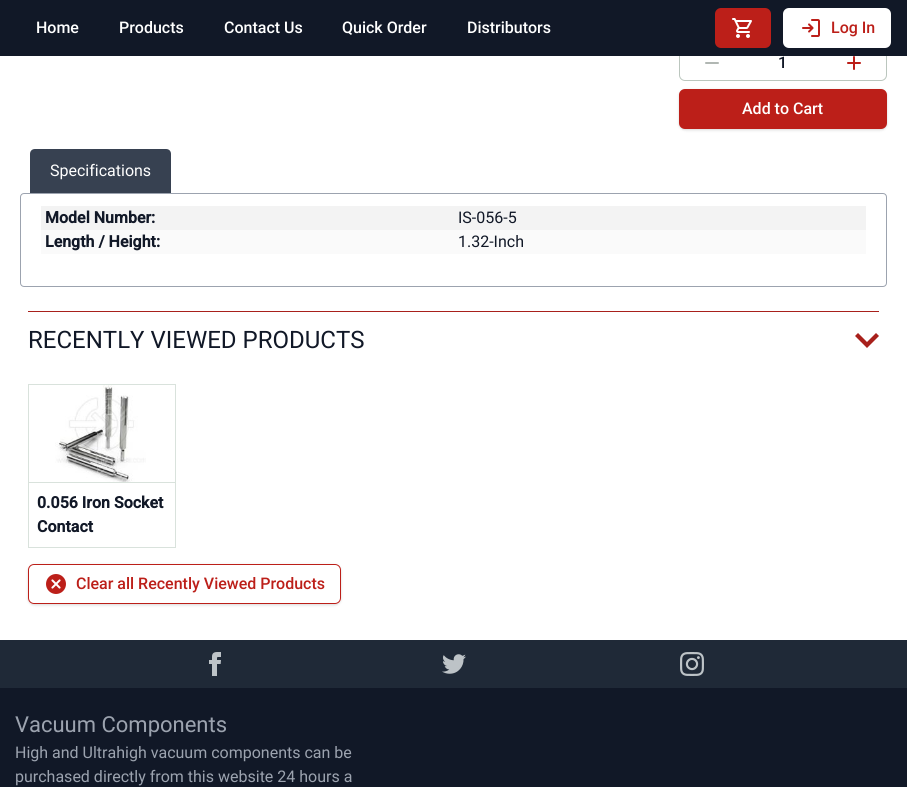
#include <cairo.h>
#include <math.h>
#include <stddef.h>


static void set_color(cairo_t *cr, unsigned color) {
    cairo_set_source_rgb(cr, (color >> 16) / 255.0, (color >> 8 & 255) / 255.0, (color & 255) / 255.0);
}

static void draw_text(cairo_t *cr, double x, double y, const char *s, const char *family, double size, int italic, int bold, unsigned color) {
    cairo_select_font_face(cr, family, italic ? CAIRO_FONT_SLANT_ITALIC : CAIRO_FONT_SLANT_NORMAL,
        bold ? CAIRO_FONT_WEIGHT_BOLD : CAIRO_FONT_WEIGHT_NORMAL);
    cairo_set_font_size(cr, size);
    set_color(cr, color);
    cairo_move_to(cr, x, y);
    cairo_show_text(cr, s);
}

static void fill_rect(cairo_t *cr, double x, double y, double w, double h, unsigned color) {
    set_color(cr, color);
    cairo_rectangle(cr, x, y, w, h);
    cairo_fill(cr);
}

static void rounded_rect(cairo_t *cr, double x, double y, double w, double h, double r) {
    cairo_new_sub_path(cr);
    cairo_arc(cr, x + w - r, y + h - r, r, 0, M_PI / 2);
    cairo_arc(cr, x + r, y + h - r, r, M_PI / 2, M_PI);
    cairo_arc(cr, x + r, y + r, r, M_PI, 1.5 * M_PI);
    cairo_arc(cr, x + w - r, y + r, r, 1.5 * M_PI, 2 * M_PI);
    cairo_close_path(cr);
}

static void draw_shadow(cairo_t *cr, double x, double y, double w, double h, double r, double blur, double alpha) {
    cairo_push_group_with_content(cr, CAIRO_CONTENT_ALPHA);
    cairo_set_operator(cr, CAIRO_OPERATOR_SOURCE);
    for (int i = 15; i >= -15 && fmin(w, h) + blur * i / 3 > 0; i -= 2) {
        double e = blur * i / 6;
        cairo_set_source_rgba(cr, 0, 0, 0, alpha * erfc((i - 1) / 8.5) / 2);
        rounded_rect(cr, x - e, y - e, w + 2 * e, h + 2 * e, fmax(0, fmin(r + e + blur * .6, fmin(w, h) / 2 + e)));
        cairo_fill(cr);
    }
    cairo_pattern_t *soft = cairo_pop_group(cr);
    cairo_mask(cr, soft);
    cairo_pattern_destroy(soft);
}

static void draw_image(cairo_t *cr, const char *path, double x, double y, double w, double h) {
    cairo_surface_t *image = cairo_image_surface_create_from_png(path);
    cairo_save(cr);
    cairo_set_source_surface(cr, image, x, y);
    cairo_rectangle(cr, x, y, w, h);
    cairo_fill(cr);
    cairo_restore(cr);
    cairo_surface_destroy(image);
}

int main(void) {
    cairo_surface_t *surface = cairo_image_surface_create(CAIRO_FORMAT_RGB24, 907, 787);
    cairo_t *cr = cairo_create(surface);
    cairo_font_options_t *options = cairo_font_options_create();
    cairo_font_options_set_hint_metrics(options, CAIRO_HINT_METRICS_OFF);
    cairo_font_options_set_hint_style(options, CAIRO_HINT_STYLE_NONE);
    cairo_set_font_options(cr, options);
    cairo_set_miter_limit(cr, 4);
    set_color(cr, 0xFFFFFF);
    cairo_paint(cr);
    rounded_rect(cr, 679.5, 45.5, 207, 35, 5.5);
    set_color(cr, 0xBBC6BE);
    cairo_set_line_width(cr, 1);
    cairo_stroke(cr);
    fill_rect(cr, 0, 0, 907, 56, 0x111827);
    draw_text(cr, 36, 33, "Home", "Roboto Medium", 16, 0, 0, 0xFFFFFF);
    draw_text(cr, 119, 33, "Products", "Roboto Medium", 16, 0, 0, 0xFFFFFF);
    draw_text(cr, 224, 33, "Contact Us", "Roboto Medium", 16, 0, 0, 0xFFFFFF);
    draw_text(cr, 342, 33, "Quick Order", "Roboto Medium", 16, 0, 0, 0xFFFFFF);
    draw_text(cr, 467, 33, "Distributors", "Roboto Medium", 16, 0, 0, 0xFFFFFF);
    set_color(cr, 0xBC1F19);
    rounded_rect(cr, 715, 8, 56, 40, 6);
    cairo_fill(cr);
    draw_image(cr, "assets/img1.png", 732, 18, 20, 20);
    set_color(cr, 0xFFFFFF);
    rounded_rect(cr, 783, 8, 108, 40, 6);
    cairo_fill(cr);
    draw_image(cr, "assets/img2.png", 802, 19, 18, 18);
    draw_text(cr, 831, 33, "Log In", "Roboto Medium", 16, 0, 0, 0xBC1F19);
    draw_image(cr, "assets/img3.png", 705, 62, 14, 2);
    draw_text(cr, 778, 68, "1", "Roboto Medium", 16, 0, 0, 0x111827);
    draw_image(cr, "assets/img4.png", 847, 56, 14, 14);
    set_color(cr, 0x000000);
    draw_shadow(cr, 679, 90, 208, 40, 6, 1, 0.06);
    draw_shadow(cr, 679, 90, 208, 40, 6, 1.5, 0.1);
    set_color(cr, 0xBC1F19);
    rounded_rect(cr, 679, 89, 208, 40, 6);
    cairo_fill(cr);
    draw_text(cr, 742, 114, "Add to Cart", "Roboto Medium", 16, 0, 0, 0xFFFFFF);
    set_color(cr, 0x374151);
    cairo_new_path(cr);
    cairo_move_to(cr, 35, 149);
    cairo_line_to(cr, 166, 149);
    cairo_curve_to(cr, 169, 149, 171, 151, 171, 154);
    cairo_line_to(cr, 171, 193);
    cairo_line_to(cr, 30, 193);
    cairo_line_to(cr, 30, 154);
    cairo_curve_to(cr, 30, 151, 32, 149, 35, 149);
    cairo_close_path(cr);
    cairo_fill(cr);
    draw_text(cr, 50, 176, "Specifications", "Roboto", 16, 0, 0, 0xFFFFFF);
    rounded_rect(cr, 20.5, 193.5, 866, 93, 3.5);
    set_color(cr, 0x9CA3AF);
    cairo_stroke(cr);
    fill_rect(cr, 41, 206, 825, 24, 0xF3F3F3);
    draw_text(cr, 45, 223, "Model Number:", "Roboto", 16, 0, 1, 0x111827);
    draw_text(cr, 458, 223, "IS-056-5", "Roboto", 16, 0, 0, 0x111827);
    fill_rect(cr, 41, 230, 825, 24, 0xFAFAFA);
    draw_text(cr, 45, 247, "Length / Height:", "Roboto", 16, 0, 1, 0x111827);
    draw_text(cr, 458, 247, "1.32-Inch", "Roboto", 16, 0, 0, 0x111827);
    fill_rect(cr, 28, 311, 851, 1, 0xA8201B);
    draw_text(cr, 28, 348, "RECENTLY VIEWED PRODUCTS", "Roboto", 24, 0, 0, 0x111827);
    set_color(cr, 0xA8201B);
    cairo_new_path(cr);
    cairo_move_to(cr, 876, 333);
    cairo_line_to(cr, 879, 336);
    cairo_line_to(cr, 867, 348);
    cairo_line_to(cr, 855, 336);
    cairo_line_to(cr, 858, 333);
    cairo_line_to(cr, 867, 342);
    cairo_close_path(cr);
    cairo_fill(cr);
    cairo_rectangle(cr, 28.5, 384.5, 147, 163);
    set_color(cr, 0xD9E2DC);
    cairo_stroke(cr);
    draw_image(cr, "assets/img5.png", 55, 385, 91, 97);
    fill_rect(cr, 29, 482, 146, 1, 0xD9E2DC);
    draw_text(cr, 37, 508, "0.056 Iron Socket", "Roboto", 16, 0, 1, 0x111827);
    draw_text(cr, 37, 532, "Contact", "Roboto", 16, 0, 1, 0x111827);
    cairo_save(cr);
    cairo_set_fill_rule(cr, CAIRO_FILL_RULE_EVEN_ODD);
    cairo_new_path(cr);
    cairo_move_to(cr, 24, 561);
    cairo_line_to(cr, 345, 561);
    cairo_line_to(cr, 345, 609);
    cairo_line_to(cr, 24, 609);
    cairo_close_path(cr);
    cairo_move_to(cr, 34, 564);
    cairo_line_to(cr, 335, 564);
    cairo_curve_to(cr, 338.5, 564, 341, 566.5, 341, 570);
    cairo_line_to(cr, 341, 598);
    cairo_curve_to(cr, 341, 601.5, 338.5, 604, 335, 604);
    cairo_line_to(cr, 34, 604);
    cairo_curve_to(cr, 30.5, 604, 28, 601.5, 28, 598);
    cairo_line_to(cr, 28, 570);
    cairo_curve_to(cr, 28, 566.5, 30.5, 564, 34, 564);
    cairo_close_path(cr);
    cairo_clip(cr);
    set_color(cr, 0x000000);
    draw_shadow(cr, 28, 565, 313, 40, 6, 1, 0.06);
    cairo_restore(cr);
    cairo_save(cr);
    cairo_set_fill_rule(cr, CAIRO_FILL_RULE_EVEN_ODD);
    cairo_new_path(cr);
    cairo_move_to(cr, 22, 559);
    cairo_line_to(cr, 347, 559);
    cairo_line_to(cr, 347, 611);
    cairo_line_to(cr, 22, 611);
    cairo_close_path(cr);
    cairo_move_to(cr, 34, 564);
    cairo_line_to(cr, 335, 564);
    cairo_curve_to(cr, 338.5, 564, 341, 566.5, 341, 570);
    cairo_line_to(cr, 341, 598);
    cairo_curve_to(cr, 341, 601.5, 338.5, 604, 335, 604);
    cairo_line_to(cr, 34, 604);
    cairo_curve_to(cr, 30.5, 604, 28, 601.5, 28, 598);
    cairo_line_to(cr, 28, 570);
    cairo_curve_to(cr, 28, 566.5, 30.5, 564, 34, 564);
    cairo_close_path(cr);
    cairo_clip(cr);
    set_color(cr, 0x000000);
    draw_shadow(cr, 28, 565, 313, 40, 6, 1.5, 0.1);
    cairo_restore(cr);
    rounded_rect(cr, 28.5, 564.5, 312, 39, 5.5);
    set_color(cr, 0xBC1F19);
    cairo_stroke(cr);
    draw_image(cr, "assets/img6.png", 46, 574, 20, 20);
    draw_text(cr, 76, 589, "Clear all Recently Viewed Products", "Roboto Medium", 16, 0, 0, 0xBC1F19);
    fill_rect(cr, 0, 640, 907, 48, 0x1F2937);
    draw_image(cr, "assets/img7.png", 209, 652, 12, 24);
    draw_image(cr, "assets/img8.png", 442, 654, 24, 20);
    draw_image(cr, "assets/img9.png", 680, 652, 24, 24);
    fill_rect(cr, 0, 688, 907, 99, 0x111827);
    draw_text(cr, 15, 732, "Vacuum Components", "Roboto", 22, 0, 0, 0x9CA3AF);
    draw_text(cr, 15, 758, "High and Ultrahigh vacuum components can be", "Roboto", 16, 0, 0, 0x9CA3AF);
    draw_text(cr, 15, 782, "purchased directly from this website 24 hours a", "Roboto", 16, 0, 0, 0x9CA3AF);
    cairo_surface_write_to_png(surface, "output.png");
    cairo_font_options_destroy(options);
    cairo_destroy(cr);
    cairo_surface_destroy(surface);
    return 0;
}
